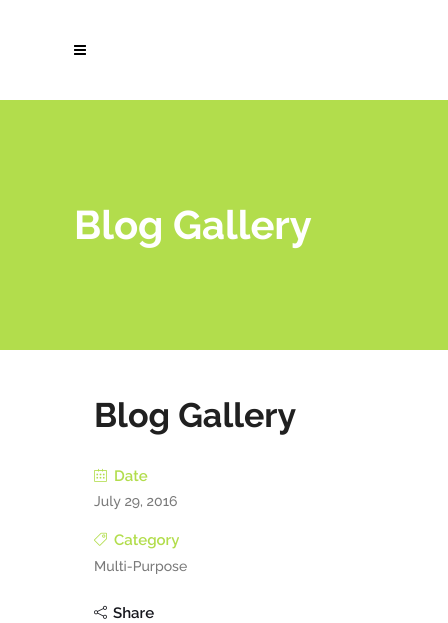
#include <cairo.h>
#include <math.h>
#include <stddef.h>


static void set_color(cairo_t *cr, unsigned color) {
    cairo_set_source_rgb(cr, (color >> 16) / 255.0, (color >> 8 & 255) / 255.0, (color & 255) / 255.0);
}

static void draw_text(cairo_t *cr, double x, double y, const char *s, const char *family, double size, int italic, int bold, unsigned color) {
    cairo_select_font_face(cr, family, italic ? CAIRO_FONT_SLANT_ITALIC : CAIRO_FONT_SLANT_NORMAL,
        bold ? CAIRO_FONT_WEIGHT_BOLD : CAIRO_FONT_WEIGHT_NORMAL);
    cairo_set_font_size(cr, size);
    set_color(cr, color);
    cairo_move_to(cr, x, y);
    cairo_show_text(cr, s);
}

static void fill_rect(cairo_t *cr, double x, double y, double w, double h, unsigned color) {
    set_color(cr, color);
    cairo_rectangle(cr, x, y, w, h);
    cairo_fill(cr);
}

static void draw_image(cairo_t *cr, const char *path, double x, double y, double w, double h) {
    cairo_surface_t *image = cairo_image_surface_create_from_png(path);
    cairo_save(cr);
    cairo_set_source_surface(cr, image, x, y);
    cairo_rectangle(cr, x, y, w, h);
    cairo_fill(cr);
    cairo_restore(cr);
    cairo_surface_destroy(image);
}

int main(void) {
    cairo_surface_t *surface = cairo_image_surface_create(CAIRO_FORMAT_RGB24, 448, 623);
    cairo_t *cr = cairo_create(surface);
    cairo_font_options_t *options = cairo_font_options_create();
    cairo_font_options_set_hint_metrics(options, CAIRO_HINT_METRICS_OFF);
    cairo_font_options_set_hint_style(options, CAIRO_HINT_STYLE_NONE);
    cairo_set_font_options(cr, options);
    cairo_set_miter_limit(cr, 4);
    set_color(cr, 0xFFFFFF);
    cairo_paint(cr);
    draw_image(cr, "assets/img1.png", 74, 45, 12, 10);
    fill_rect(cr, 0, 100, 448, 250, 0xB2DD4C);
    draw_text(cr, 74, 239, "Blog Gallery", "Raleway", 40, 0, 1, 0xFFFFFF);
    draw_text(cr, 94, 427, "Blog Gallery", "Raleway", 34, 0, 1, 0x202020);
    draw_image(cr, "assets/img2.png", 94, 468, 13, 14);
    draw_text(cr, 114, 481, "Date", "Raleway SemiBold", 15, 0, 0, 0xB2DD4C);
    draw_text(cr, 94, 506, "July 29, 2016", "Raleway Medium", 14, 0, 0, 0x797979);
    draw_image(cr, "assets/img3.png", 94, 532, 13, 14);
    draw_text(cr, 114, 545, "Category", "Raleway SemiBold", 15, 0, 0, 0xB2DD4C);
    draw_text(cr, 94, 571, "Multi-Purpose", "Raleway Medium", 14, 0, 0, 0x797979);
    draw_image(cr, "assets/img4.png", 94, 605, 13, 14);
    draw_text(cr, 113, 618, "Share", "Raleway SemiBold", 15, 0, 0, 0x16171D);
    cairo_surface_write_to_png(surface, "output.png");
    cairo_font_options_destroy(options);
    cairo_destroy(cr);
    cairo_surface_destroy(surface);
    return 0;
}
